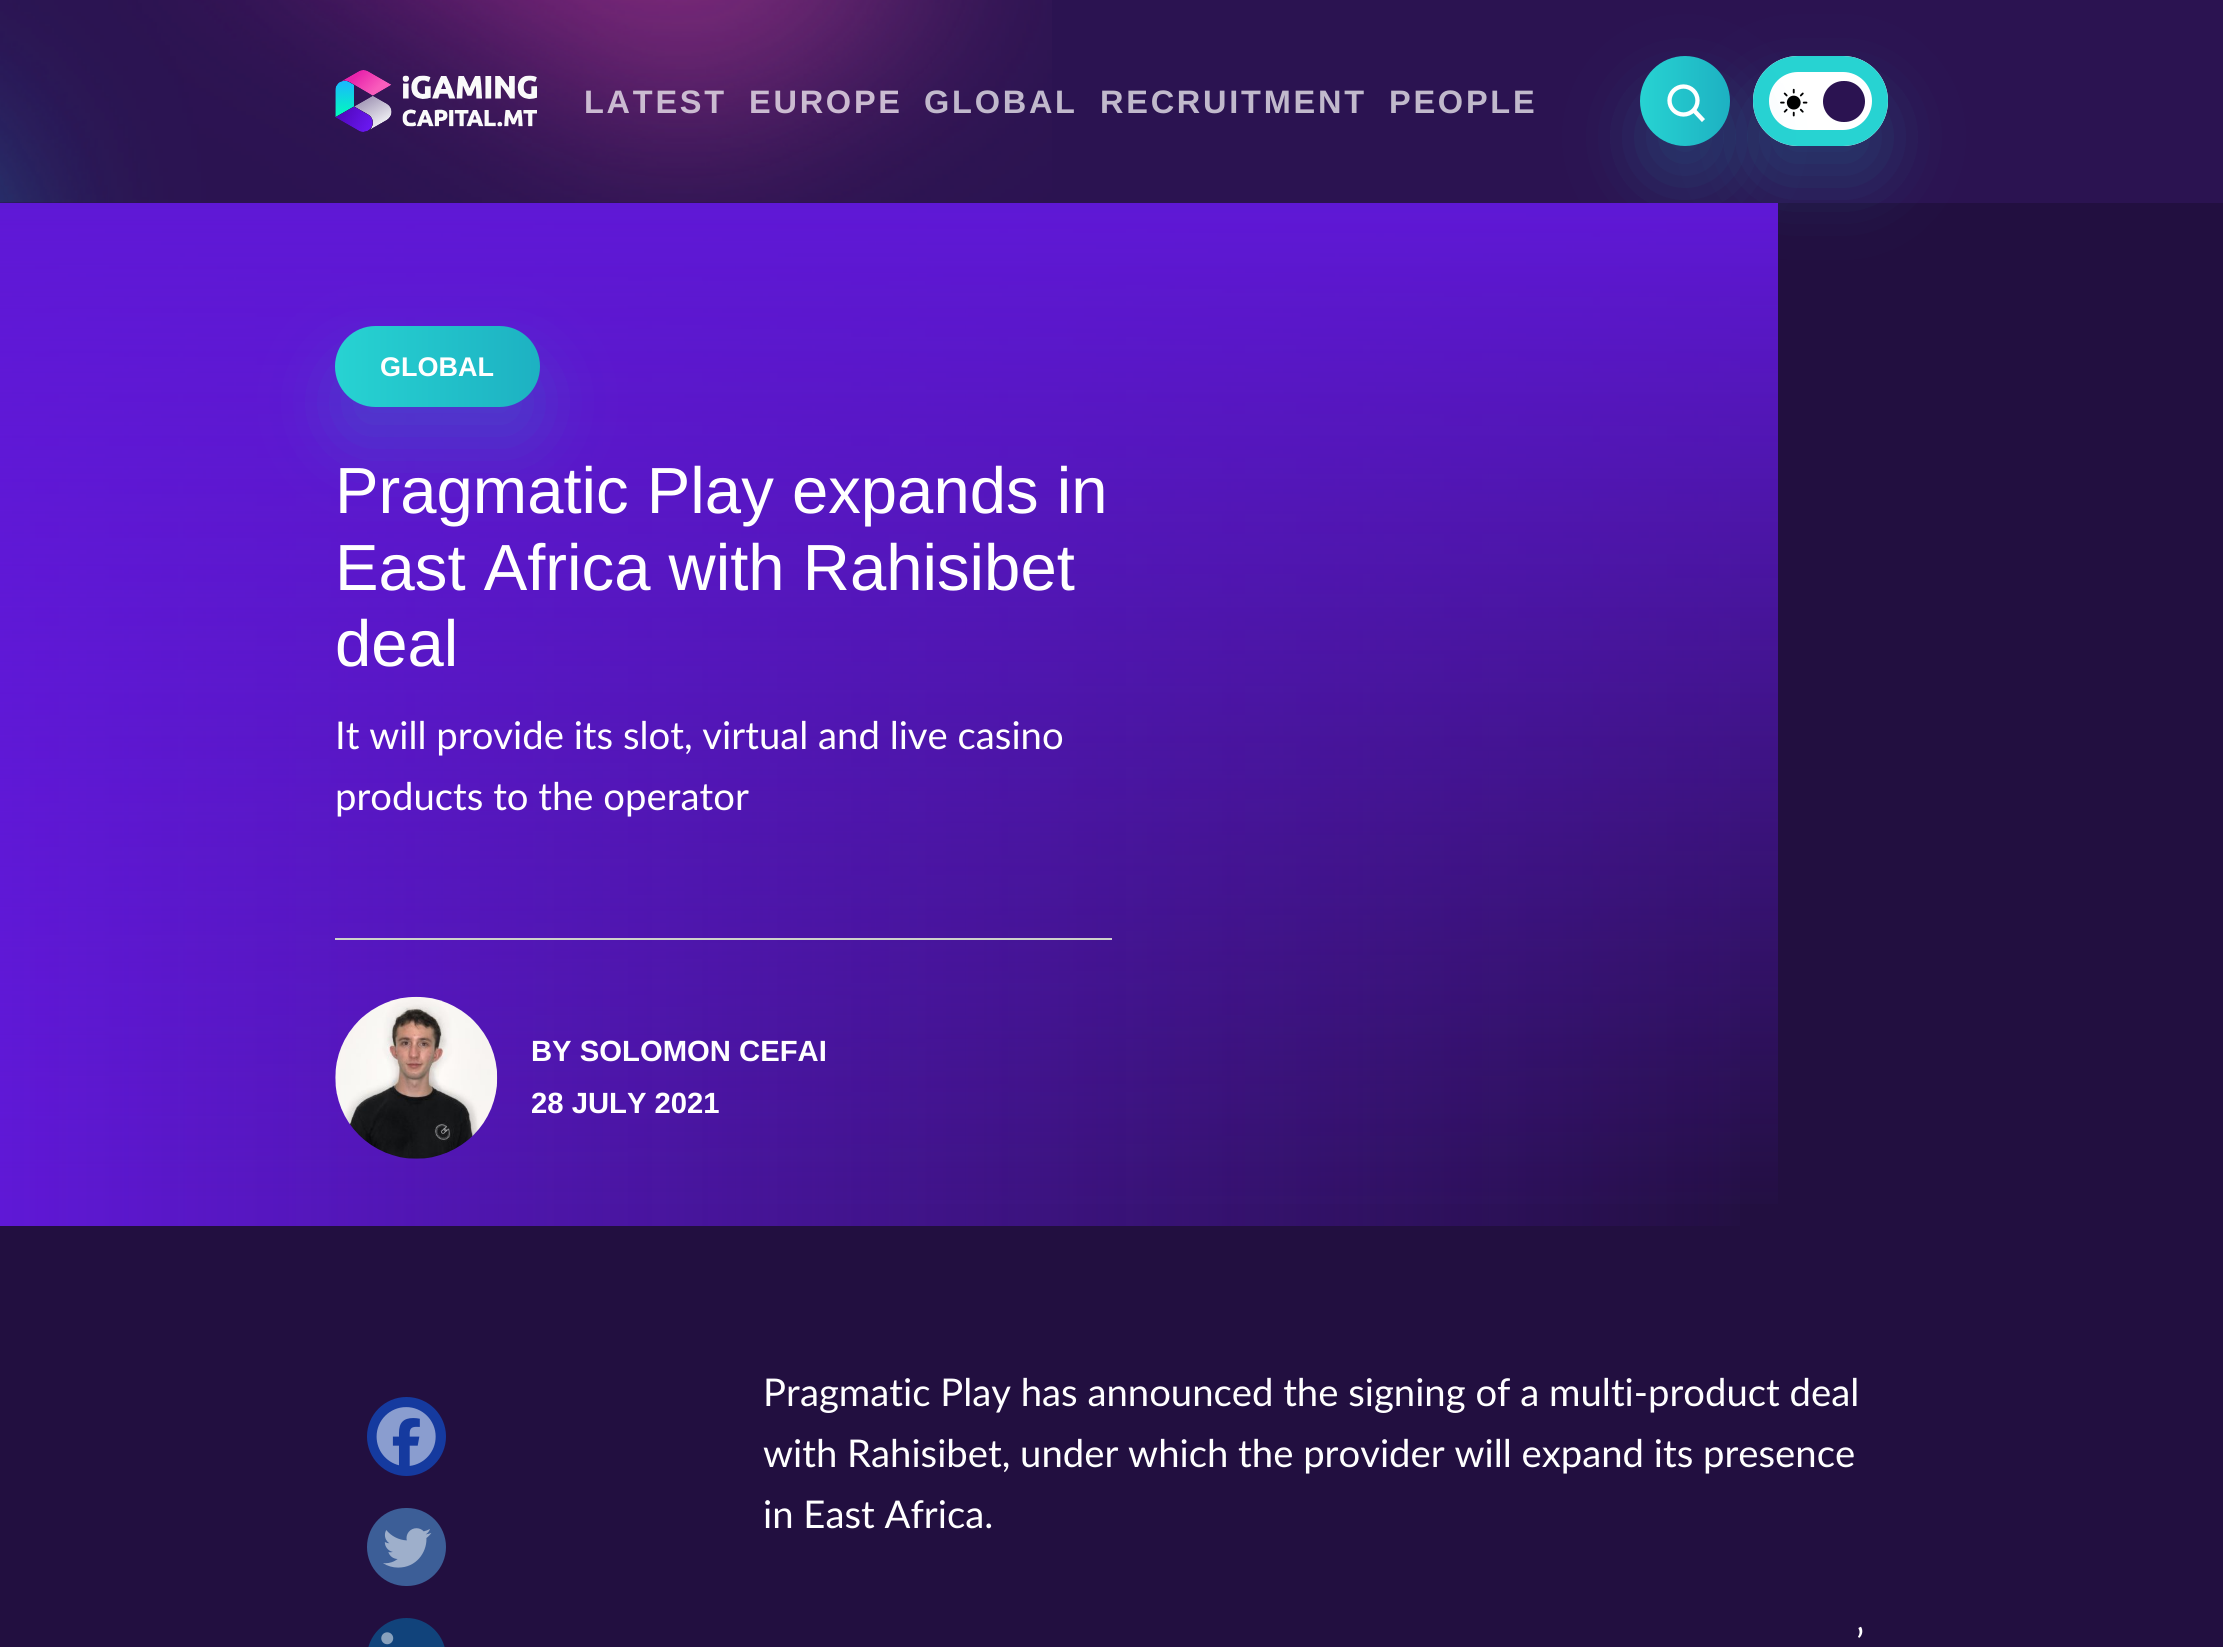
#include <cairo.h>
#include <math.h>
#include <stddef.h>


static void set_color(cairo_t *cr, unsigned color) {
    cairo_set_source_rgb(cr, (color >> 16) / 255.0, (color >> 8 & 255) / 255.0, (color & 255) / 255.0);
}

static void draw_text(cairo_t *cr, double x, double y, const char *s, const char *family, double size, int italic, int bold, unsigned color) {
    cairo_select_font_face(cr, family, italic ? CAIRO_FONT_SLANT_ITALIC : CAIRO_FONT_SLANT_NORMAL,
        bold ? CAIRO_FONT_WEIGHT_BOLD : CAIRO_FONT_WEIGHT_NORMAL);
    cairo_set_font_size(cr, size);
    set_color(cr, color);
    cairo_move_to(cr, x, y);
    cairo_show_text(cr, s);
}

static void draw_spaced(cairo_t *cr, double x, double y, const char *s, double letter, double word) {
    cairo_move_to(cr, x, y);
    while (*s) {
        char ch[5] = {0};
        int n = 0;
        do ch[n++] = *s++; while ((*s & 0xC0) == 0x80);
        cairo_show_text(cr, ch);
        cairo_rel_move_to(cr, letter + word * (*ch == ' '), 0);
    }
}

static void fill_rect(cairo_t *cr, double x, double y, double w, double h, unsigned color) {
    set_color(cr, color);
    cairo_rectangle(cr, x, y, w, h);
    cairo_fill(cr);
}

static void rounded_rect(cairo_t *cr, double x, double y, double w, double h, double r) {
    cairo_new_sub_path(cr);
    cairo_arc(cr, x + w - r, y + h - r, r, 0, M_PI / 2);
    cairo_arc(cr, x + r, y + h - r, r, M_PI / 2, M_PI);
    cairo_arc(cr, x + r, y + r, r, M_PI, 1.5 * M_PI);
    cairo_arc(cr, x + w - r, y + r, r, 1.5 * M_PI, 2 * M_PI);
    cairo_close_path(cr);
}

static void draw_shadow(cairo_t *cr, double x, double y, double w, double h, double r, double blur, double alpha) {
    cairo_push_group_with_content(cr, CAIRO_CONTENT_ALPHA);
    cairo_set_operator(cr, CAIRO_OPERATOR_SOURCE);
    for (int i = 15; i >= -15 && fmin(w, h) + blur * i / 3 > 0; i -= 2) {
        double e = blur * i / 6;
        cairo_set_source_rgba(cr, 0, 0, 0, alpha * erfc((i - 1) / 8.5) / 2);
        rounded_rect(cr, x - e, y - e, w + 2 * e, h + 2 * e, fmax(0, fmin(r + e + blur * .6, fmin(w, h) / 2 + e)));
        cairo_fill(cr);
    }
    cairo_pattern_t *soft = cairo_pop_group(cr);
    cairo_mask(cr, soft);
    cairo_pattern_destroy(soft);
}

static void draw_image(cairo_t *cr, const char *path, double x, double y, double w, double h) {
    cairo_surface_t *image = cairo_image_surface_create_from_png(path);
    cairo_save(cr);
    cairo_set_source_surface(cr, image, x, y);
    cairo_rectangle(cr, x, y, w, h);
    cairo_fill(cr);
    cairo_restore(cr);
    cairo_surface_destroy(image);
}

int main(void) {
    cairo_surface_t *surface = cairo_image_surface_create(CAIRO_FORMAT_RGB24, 2223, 1647);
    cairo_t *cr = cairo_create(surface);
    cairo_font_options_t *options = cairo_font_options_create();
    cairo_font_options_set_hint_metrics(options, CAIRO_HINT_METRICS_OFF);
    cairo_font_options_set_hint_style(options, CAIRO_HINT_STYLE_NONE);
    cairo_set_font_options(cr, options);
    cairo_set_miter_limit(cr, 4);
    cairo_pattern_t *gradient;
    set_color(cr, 0x220F40);
    cairo_paint(cr);
    fill_rect(cr, 0, 0, 2223, 203, 0x2B1351);
    draw_image(cr, "assets/img1.png", 0, 0, 1052, 203);
    draw_image(cr, "assets/img2.png", 335, 70, 202, 62);
    cairo_select_font_face(cr, "Liberation Sans", CAIRO_FONT_SLANT_NORMAL, CAIRO_FONT_WEIGHT_BOLD);
    cairo_set_font_size(cr, 32.5);
    set_color(cr, 0xCBBBD1);
    draw_spaced(cr, 584, 113, "LATEST", 2.75, 0);
    draw_spaced(cr, 749, 113, "EUROPE", 2.75, 0);
    set_color(cr, 0xC1B9CC);
    draw_spaced(cr, 924, 113, "GLOBAL", 2.75, 0);
    draw_spaced(cr, 1100, 113, "RECRUITMENT", 2.75, 0);
    draw_spaced(cr, 1389, 113, "PEOPLE", 2.75, 0);
    set_color(cr, 0x1DB1C2);
    draw_shadow(cr, 1753, 92, 135, 90, 45, 36, 0.24);
    set_color(cr, 0xFFFFFF);
    rounded_rect(cr, 1753, 56, 135, 90, 45);
    cairo_fill(cr);
    draw_image(cr, "assets/img3.png", 1780, 88, 28, 29);
    rounded_rect(cr, 1761, 64, 119, 74, 37);
    set_color(cr, 0x27D3D2);
    cairo_set_line_width(cr, 16);
    cairo_stroke(cr);
    set_color(cr, 0x1DB1C2);
    draw_shadow(cr, 1640, 92, 90, 90, 45, 36, 0.24);
    gradient = cairo_pattern_create_linear(1640, 101, 1730, 101);
    cairo_pattern_add_color_stop_rgba(gradient, 0, 0.153, 0.827, 0.824, 1);
    cairo_pattern_add_color_stop_rgba(gradient, 1, 0.114, 0.694, 0.761, 1);
    cairo_set_source(cr, gradient);
    cairo_pattern_destroy(gradient);
    cairo_arc(cr, 1685, 101, 45, 0, 2 * M_PI);
    cairo_fill(cr);
    cairo_arc(cr, 1683.5, 100.5, 14, 0, 2 * M_PI);
    set_color(cr, 0xFFFFFF);
    cairo_set_line_width(cr, 4.3);
    cairo_stroke(cr);
    cairo_new_path(cr);
    cairo_move_to(cr, 1702, 119);
    cairo_line_to(cr, 1694.5, 111);
    cairo_set_line_cap(cr, CAIRO_LINE_CAP_SQUARE);
    cairo_stroke(cr);
    set_color(cr, 0x2B1351);
    rounded_rect(cr, 1823, 81, 42, 41, 20.5);
    cairo_fill(cr);
    gradient = cairo_pattern_create_linear(1778, 714, 0, 714);
    cairo_pattern_add_color_stop_rgba(gradient, 0, 0.373, 0.094, 0.839, 0);
    cairo_pattern_add_color_stop_rgba(gradient, 1, 0.373, 0.094, 0.839, 1);
    cairo_set_source(cr, gradient);
    cairo_pattern_destroy(gradient);
    cairo_rectangle(cr, 0, 209, 1740, 1017);
    cairo_fill(cr);
    gradient = cairo_pattern_create_linear(889, 1226, 889, 203);
    cairo_pattern_add_color_stop_rgba(gradient, 0, 0.373, 0.094, 0.839, 0);
    cairo_pattern_add_color_stop_rgba(gradient, 1, 0.373, 0.094, 0.839, 1);
    cairo_set_source(cr, gradient);
    cairo_pattern_destroy(gradient);
    cairo_rectangle(cr, 0, 203, 1778, 1001);
    cairo_fill(cr);
    fill_rect(cr, 335, 938, 777, 2, 0xCDD1CB);
    set_color(cr, 0x1DB1C2);
    draw_shadow(cr, 335, 362, 205, 81, 40.5, 36, 0.24);
    gradient = cairo_pattern_create_linear(335, 367, 540, 367);
    cairo_pattern_add_color_stop_rgba(gradient, 0, 0.153, 0.827, 0.824, 1);
    cairo_pattern_add_color_stop_rgba(gradient, 1, 0.114, 0.694, 0.761, 1);
    cairo_set_source(cr, gradient);
    cairo_pattern_destroy(gradient);
    rounded_rect(cr, 335, 326, 205, 81, 40.5);
    cairo_fill(cr);
    draw_text(cr, 380, 376, "GLOBAL", "Liberation Sans", 27, 0, 1, 0xFFFFFF);
    draw_text(cr, 335, 513, "Pragmatic Play expands in", "Liberation Sans", 65.25, 0, 0, 0xFFFFFF);
    draw_text(cr, 335, 590, "East Africa with Rahisibet", "Liberation Sans", 65.25, 0, 0, 0xFFFFFF);
    draw_text(cr, 335, 666, "deal", "Liberation Sans", 65.25, 0, 0, 0xFFFFFF);
    draw_text(cr, 335, 749, "It will provide its slot, virtual and live casino", "Lato", 38.25, 0, 0, 0xFFFFFF);
    draw_text(cr, 335, 810, "products to the operator", "Lato", 38.25, 0, 0, 0xFFFFFF);
    draw_image(cr, "assets/img4.png", 335, 996, 163, 163);
    draw_text(cr, 531, 1061, "BY SOLOMON CEFAI", "Liberation Sans", 29.25, 0, 1, 0xFFFFFF);
    draw_text(cr, 531, 1113, "28 JULY 2021", "Liberation Sans", 29.25, 0, 1, 0xFFFFFF);
    set_color(cr, 0x153A9F);
    cairo_new_path(cr);
    cairo_arc(cr, 406.5, 1436.5, 39.5, 0, 2 * M_PI);
    cairo_fill(cr);
    draw_image(cr, "assets/img5.png", 376, 1407, 60, 59);
    set_color(cr, 0x3C5E97);
    rounded_rect(cr, 367, 1508, 79, 78, 39);
    cairo_fill(cr);
    draw_image(cr, "assets/img6.png", 383, 1528, 49, 40);
    set_color(cr, 0x11437B);
    rounded_rect(cr, 367, 1618, 79, 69, 39.5);
    cairo_fill(cr);
    draw_image(cr, "assets/img7.png", 381, 1632, 13, 13);
    draw_text(cr, 763, 1406, "Pragmatic Play has announced the signing of a multi-product deal", "Lato", 38.25, 0, 0, 0xFFFFFF);
    draw_text(cr, 763, 1467, "with Rahisibet, under which the provider will expand its presence", "Lato", 38.25, 0, 0, 0xFFFFFF);
    draw_text(cr, 763, 1528, "in East Africa.", "Lato", 38.25, 0, 0, 0xFFFFFF);
    draw_text(cr, 1856, 1656, "’", "Lato", 38.25, 0, 0, 0xFFFFFF);
    cairo_surface_write_to_png(surface, "output.png");
    cairo_font_options_destroy(options);
    cairo_destroy(cr);
    cairo_surface_destroy(surface);
    return 0;
}
